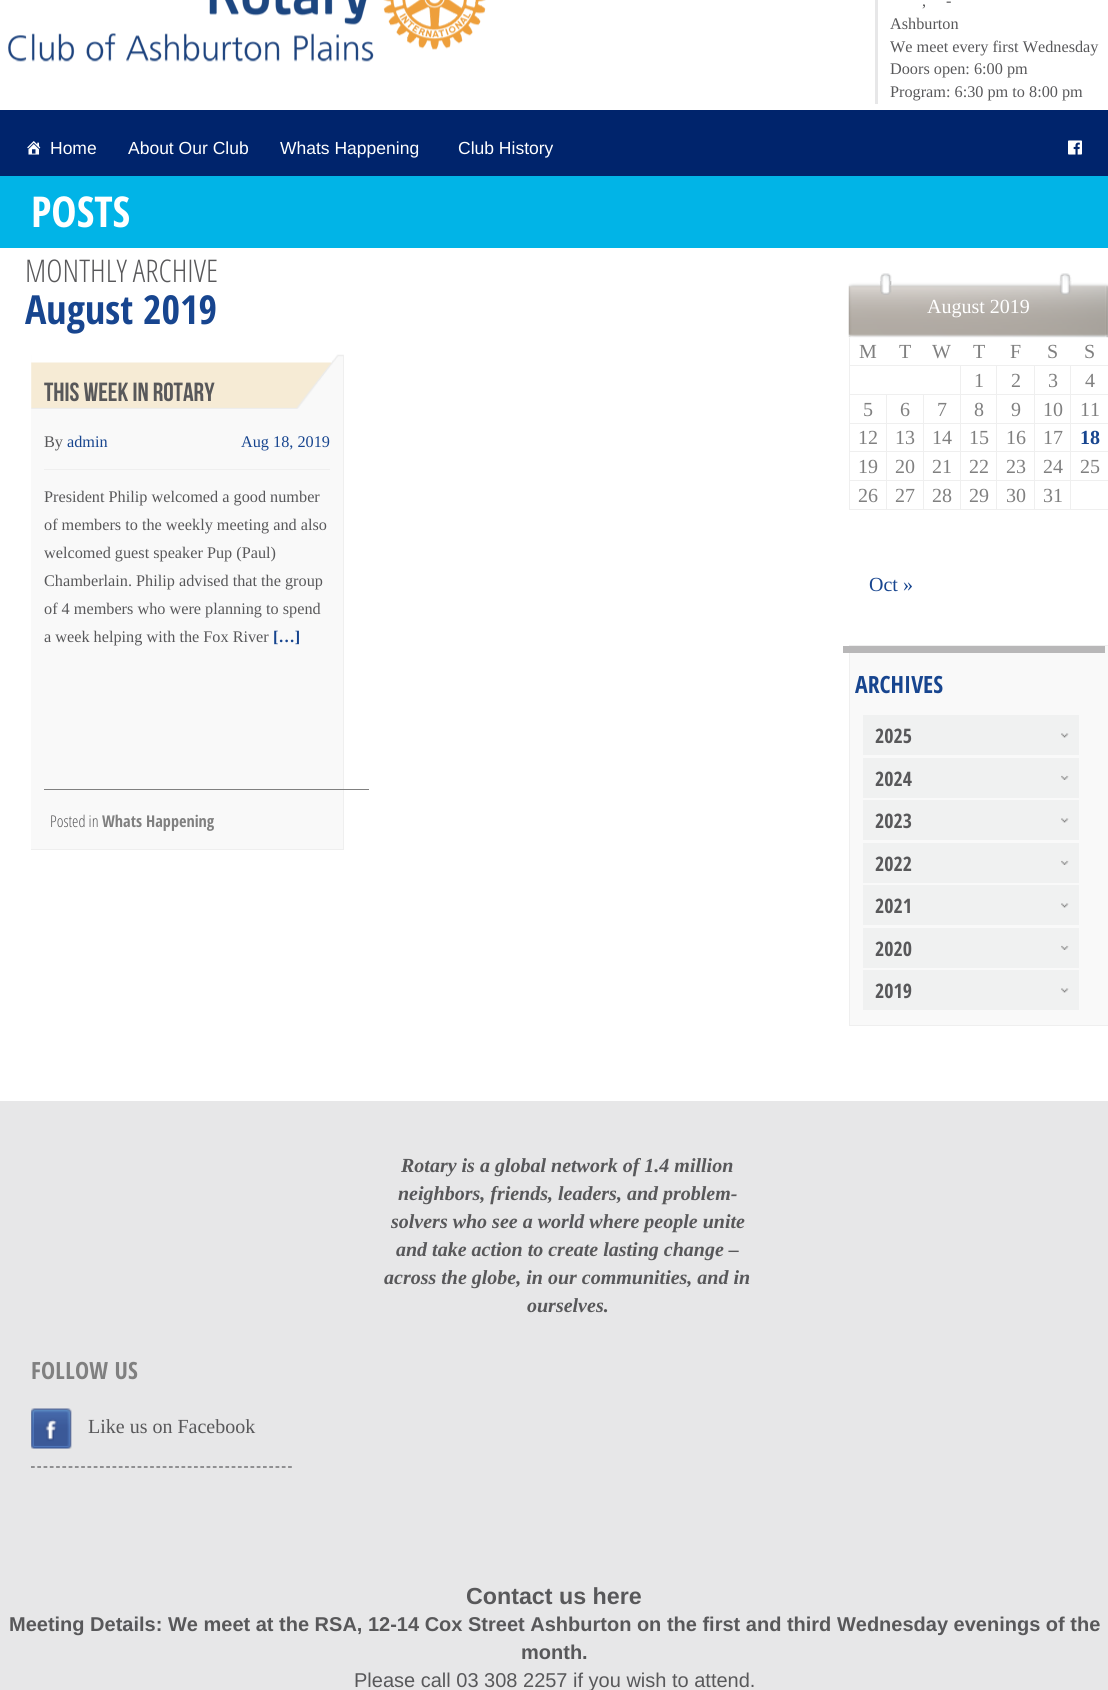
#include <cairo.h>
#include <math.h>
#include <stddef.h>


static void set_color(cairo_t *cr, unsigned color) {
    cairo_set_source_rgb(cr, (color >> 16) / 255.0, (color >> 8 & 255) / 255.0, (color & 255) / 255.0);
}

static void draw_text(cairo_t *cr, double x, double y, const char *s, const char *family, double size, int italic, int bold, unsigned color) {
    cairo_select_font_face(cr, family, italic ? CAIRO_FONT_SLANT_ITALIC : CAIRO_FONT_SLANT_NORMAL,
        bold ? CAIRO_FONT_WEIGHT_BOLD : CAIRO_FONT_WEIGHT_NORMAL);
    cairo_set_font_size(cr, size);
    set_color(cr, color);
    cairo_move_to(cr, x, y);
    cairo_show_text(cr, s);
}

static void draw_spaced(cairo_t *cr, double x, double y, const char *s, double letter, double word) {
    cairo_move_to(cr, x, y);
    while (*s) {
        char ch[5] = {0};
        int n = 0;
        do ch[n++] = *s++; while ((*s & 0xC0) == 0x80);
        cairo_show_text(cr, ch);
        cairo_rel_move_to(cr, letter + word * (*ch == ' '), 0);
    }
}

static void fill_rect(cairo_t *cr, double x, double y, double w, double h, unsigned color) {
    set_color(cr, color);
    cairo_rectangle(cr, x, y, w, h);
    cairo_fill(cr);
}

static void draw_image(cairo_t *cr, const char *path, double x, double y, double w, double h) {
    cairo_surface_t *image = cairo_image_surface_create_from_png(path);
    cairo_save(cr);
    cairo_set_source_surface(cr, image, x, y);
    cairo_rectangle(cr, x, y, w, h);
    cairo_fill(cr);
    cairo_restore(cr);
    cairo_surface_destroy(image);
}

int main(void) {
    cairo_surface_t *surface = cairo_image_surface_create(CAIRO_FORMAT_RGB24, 1108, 1690);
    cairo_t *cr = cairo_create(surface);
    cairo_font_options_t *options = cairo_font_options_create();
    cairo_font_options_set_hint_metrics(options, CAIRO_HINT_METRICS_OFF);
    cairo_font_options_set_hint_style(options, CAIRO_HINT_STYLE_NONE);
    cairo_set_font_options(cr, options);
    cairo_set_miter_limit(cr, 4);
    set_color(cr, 0xFFFFFF);
    cairo_paint(cr);
    draw_image(cr, "assets/img1.png", 8, 0, 478, 62);
    fill_rect(cr, 875, 0, 3, 104, 0xE7E7E8);
    draw_text(cr, 946, 6, "-", "Liberation Serif", 16.25, 0, 0, 0x58585A);
    draw_text(cr, 922, 6, ",", "Liberation Serif", 16.25, 0, 0, 0x58585A);
    draw_text(cr, 890, 29, "Ashburton", "Liberation Serif", 16.25, 0, 0, 0x58585A);
    draw_text(cr, 890, 52, "We meet every first Wednesday", "Liberation Serif", 16.25, 0, 0, 0x58585A);
    draw_text(cr, 890, 74, "Doors open: 6:00 pm", "Liberation Serif", 16.25, 0, 0, 0x58585A);
    draw_text(cr, 890, 97, "Program: 6:30 pm to 8:00 pm", "Liberation Serif", 16.25, 0, 0, 0x58585A);
    fill_rect(cr, 0, 110, 1108, 66, 0x00246C);
    draw_image(cr, "assets/img2.png", 27, 141, 14, 14);
    draw_text(cr, 50, 154, "Home", "Liberation Sans", 17.5, 0, 0, 0xFFFFFF);
    draw_text(cr, 128, 154, "About Our Club", "Liberation Sans", 17.5, 0, 0, 0xFFFFFF);
    draw_text(cr, 280, 154, "Whats Happening", "Liberation Sans", 17.5, 0, 0, 0xFFFFFF);
    draw_text(cr, 458, 154, "Club History", "Liberation Sans", 17.5, 0, 0, 0xFFFFFF);
    draw_image(cr, "assets/img3.png", 1068, 140, 14, 15);
    fill_rect(cr, 0, 176, 1108, 72, 0x01B4E7);
    draw_text(cr, 31, 227, "POSTS", "Open Sans Condensed", 42.5, 0, 1, 0xFFFFFF);
    draw_text(cr, 25, 282, "MONTHLY ARCHIVE", "Open Sans Condensed Light", 31.25, 0, 0, 0x58585A);
    draw_text(cr, 25, 324, "August 2019", "Open Sans Condensed", 40, 0, 1, 0x17458F);
    draw_image(cr, "assets/img4.png", 848, 273, 260, 65);
    draw_text(cr, 927, 313, "August 2019", "Liberation Serif", 20, 0, 0, 0xFFFFFF);
    fill_rect(cr, 849, 338, 1, 28, 0xEFEFEF);
    draw_text(cr, 859, 358, "M", "Liberation Serif", 20, 0, 0, 0x808080);
    draw_text(cr, 899, 358, "T", "Liberation Serif", 20, 0, 0, 0x808080);
    draw_text(cr, 932, 358, "W", "Liberation Serif", 20, 0, 0, 0x808080);
    draw_text(cr, 973, 358, "T", "Liberation Serif", 20, 0, 0, 0x808080);
    draw_text(cr, 1010, 358, "F", "Liberation Serif", 20, 0, 0, 0x808080);
    draw_text(cr, 1047, 358, "S", "Liberation Serif", 20, 0, 0, 0x808080);
    draw_text(cr, 1084, 358, "S", "Liberation Serif", 20, 0, 0, 0x808080);
    fill_rect(cr, 1070, 365, 38, 1, 0xEFEFEF);
    fill_rect(cr, 1070, 394, 38, 1, 0xEFEFEF);
    fill_rect(cr, 1070, 423, 38, 1, 0xEFEFEF);
    fill_rect(cr, 1070, 451, 38, 1, 0xEFEFEF);
    fill_rect(cr, 1070, 480, 38, 1, 0xEFEFEF);
    fill_rect(cr, 1070, 509, 38, 1, 0xEFEFEF);
    fill_rect(cr, 1070, 480, 1, 30, 0xEFEFEF);
    fill_rect(cr, 1034, 480, 37, 1, 0xEFEFEF);
    fill_rect(cr, 1070, 451, 1, 30, 0xEFEFEF);
    fill_rect(cr, 1034, 451, 37, 1, 0xEFEFEF);
    fill_rect(cr, 1070, 423, 1, 30, 0xEFEFEF);
    fill_rect(cr, 1034, 423, 37, 1, 0xEFEFEF);
    fill_rect(cr, 1070, 394, 1, 30, 0xEFEFEF);
    fill_rect(cr, 1034, 394, 37, 1, 0xEFEFEF);
    fill_rect(cr, 1070, 365, 1, 30, 0xEFEFEF);
    fill_rect(cr, 1034, 365, 37, 1, 0xEFEFEF);
    fill_rect(cr, 1034, 509, 37, 1, 0xEFEFEF);
    fill_rect(cr, 1034, 480, 1, 30, 0xEFEFEF);
    fill_rect(cr, 996, 480, 39, 1, 0xEFEFEF);
    fill_rect(cr, 1034, 451, 1, 30, 0xEFEFEF);
    fill_rect(cr, 996, 451, 39, 1, 0xEFEFEF);
    fill_rect(cr, 1034, 423, 1, 30, 0xEFEFEF);
    fill_rect(cr, 996, 423, 39, 1, 0xEFEFEF);
    fill_rect(cr, 1034, 394, 1, 30, 0xEFEFEF);
    fill_rect(cr, 996, 394, 39, 1, 0xEFEFEF);
    fill_rect(cr, 1034, 365, 1, 30, 0xEFEFEF);
    fill_rect(cr, 996, 365, 39, 1, 0xEFEFEF);
    fill_rect(cr, 996, 509, 39, 1, 0xEFEFEF);
    fill_rect(cr, 996, 480, 1, 30, 0xEFEFEF);
    fill_rect(cr, 960, 480, 38, 1, 0xEFEFEF);
    fill_rect(cr, 996, 451, 1, 30, 0xEFEFEF);
    fill_rect(cr, 960, 451, 38, 1, 0xEFEFEF);
    fill_rect(cr, 996, 423, 1, 30, 0xEFEFEF);
    fill_rect(cr, 960, 423, 38, 1, 0xEFEFEF);
    fill_rect(cr, 996, 394, 1, 30, 0xEFEFEF);
    fill_rect(cr, 960, 394, 38, 1, 0xEFEFEF);
    fill_rect(cr, 996, 365, 1, 30, 0xEFEFEF);
    fill_rect(cr, 960, 365, 38, 1, 0xEFEFEF);
    fill_rect(cr, 960, 509, 38, 1, 0xEFEFEF);
    fill_rect(cr, 960, 480, 1, 30, 0xEFEFEF);
    fill_rect(cr, 923, 480, 38, 1, 0xEFEFEF);
    fill_rect(cr, 960, 451, 1, 30, 0xEFEFEF);
    fill_rect(cr, 923, 451, 38, 1, 0xEFEFEF);
    fill_rect(cr, 960, 423, 1, 30, 0xEFEFEF);
    fill_rect(cr, 923, 423, 38, 1, 0xEFEFEF);
    fill_rect(cr, 960, 394, 1, 30, 0xEFEFEF);
    fill_rect(cr, 923, 394, 38, 1, 0xEFEFEF);
    fill_rect(cr, 960, 365, 1, 30, 0xEFEFEF);
    fill_rect(cr, 849, 365, 112, 1, 0xEFEFEF);
    fill_rect(cr, 923, 509, 38, 1, 0xEFEFEF);
    fill_rect(cr, 923, 480, 1, 30, 0xEFEFEF);
    fill_rect(cr, 886, 480, 38, 1, 0xEFEFEF);
    fill_rect(cr, 923, 451, 1, 30, 0xEFEFEF);
    fill_rect(cr, 886, 451, 38, 1, 0xEFEFEF);
    fill_rect(cr, 923, 423, 1, 30, 0xEFEFEF);
    fill_rect(cr, 886, 423, 38, 1, 0xEFEFEF);
    fill_rect(cr, 923, 394, 1, 30, 0xEFEFEF);
    fill_rect(cr, 886, 394, 38, 1, 0xEFEFEF);
    fill_rect(cr, 886, 509, 38, 1, 0xEFEFEF);
    fill_rect(cr, 886, 480, 1, 30, 0xEFEFEF);
    fill_rect(cr, 849, 480, 39, 1, 0xEFEFEF);
    fill_rect(cr, 886, 451, 1, 30, 0xEFEFEF);
    fill_rect(cr, 849, 451, 39, 1, 0xEFEFEF);
    fill_rect(cr, 886, 423, 1, 30, 0xEFEFEF);
    fill_rect(cr, 849, 423, 39, 1, 0xEFEFEF);
    fill_rect(cr, 886, 394, 1, 30, 0xEFEFEF);
    fill_rect(cr, 849, 394, 39, 1, 0xEFEFEF);
    fill_rect(cr, 849, 509, 39, 1, 0xEFEFEF);
    fill_rect(cr, 849, 480, 1, 30, 0xEFEFEF);
    fill_rect(cr, 849, 451, 1, 30, 0xEFEFEF);
    fill_rect(cr, 849, 423, 1, 30, 0xEFEFEF);
    fill_rect(cr, 849, 394, 1, 30, 0xEFEFEF);
    fill_rect(cr, 849, 365, 1, 30, 0xEFEFEF);
    draw_text(cr, 974, 387, "1", "Liberation Serif", 20, 0, 0, 0x808080);
    draw_text(cr, 1011, 387, "2", "Liberation Serif", 20, 0, 0, 0x808080);
    draw_text(cr, 1048, 387, "3", "Liberation Serif", 20, 0, 0, 0x808080);
    draw_text(cr, 1085, 387, "4", "Liberation Serif", 20, 0, 0, 0x808080);
    draw_text(cr, 863, 416, "5", "Liberation Serif", 20, 0, 0, 0x808080);
    draw_text(cr, 900, 416, "6", "Liberation Serif", 20, 0, 0, 0x808080);
    draw_text(cr, 937, 416, "7", "Liberation Serif", 20, 0, 0, 0x808080);
    draw_text(cr, 974, 416, "8", "Liberation Serif", 20, 0, 0, 0x808080);
    draw_text(cr, 1011, 416, "9", "Liberation Serif", 20, 0, 0, 0x808080);
    draw_text(cr, 1043, 416, "10", "Liberation Serif", 20, 0, 0, 0x808080);
    draw_text(cr, 1080, 416, "11", "Liberation Serif", 20, 0, 0, 0x808080);
    draw_text(cr, 858, 444, "12", "Liberation Serif", 20, 0, 0, 0x808080);
    draw_text(cr, 895, 444, "13", "Liberation Serif", 20, 0, 0, 0x808080);
    draw_text(cr, 932, 444, "14", "Liberation Serif", 20, 0, 0, 0x808080);
    draw_text(cr, 969, 444, "15", "Liberation Serif", 20, 0, 0, 0x808080);
    draw_text(cr, 1006, 444, "16", "Liberation Serif", 20, 0, 0, 0x808080);
    draw_text(cr, 1043, 444, "17", "Liberation Serif", 20, 0, 0, 0x808080);
    draw_text(cr, 1080, 444, "18", "Liberation Serif", 20, 0, 1, 0x17458F);
    draw_text(cr, 858, 473, "19", "Liberation Serif", 20, 0, 0, 0x808080);
    draw_text(cr, 895, 473, "20", "Liberation Serif", 20, 0, 0, 0x808080);
    draw_text(cr, 932, 473, "21", "Liberation Serif", 20, 0, 0, 0x808080);
    draw_text(cr, 969, 473, "22", "Liberation Serif", 20, 0, 0, 0x808080);
    draw_text(cr, 1006, 473, "23", "Liberation Serif", 20, 0, 0, 0x808080);
    draw_text(cr, 1043, 473, "24", "Liberation Serif", 20, 0, 0, 0x808080);
    draw_text(cr, 1080, 473, "25", "Liberation Serif", 20, 0, 0, 0x808080);
    draw_text(cr, 858, 502, "26", "Liberation Serif", 20, 0, 0, 0x808080);
    draw_text(cr, 895, 502, "27", "Liberation Serif", 20, 0, 0, 0x808080);
    draw_text(cr, 932, 502, "28", "Liberation Serif", 20, 0, 0, 0x808080);
    draw_text(cr, 969, 502, "29", "Liberation Serif", 20, 0, 0, 0x808080);
    draw_text(cr, 1006, 502, "30", "Liberation Serif", 20, 0, 0, 0x808080);
    draw_text(cr, 1043, 502, "31", "Liberation Serif", 20, 0, 0, 0x808080);
    draw_text(cr, 869, 591, "Oct »", "Liberation Serif", 20, 0, 0, 0x17458F);
    set_color(cr, 0xF9F9F9);
    cairo_rectangle(cr, 849.5, 645.5, 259, 380);
    cairo_fill_preserve(cr);
    set_color(cr, 0xEFEFEF);
    cairo_set_line_width(cr, 1);
    cairo_stroke(cr);
    fill_rect(cr, 843, 646, 262, 7, 0xB8B7B8);
    draw_text(cr, 855, 693, "ARCHIVES", "Open Sans Condensed", 23.75, 0, 1, 0x17458F);
    fill_rect(cr, 863, 715, 216, 40, 0xF0F1F1);
    draw_image(cr, "assets/img5.png", 1061, 733, 8, 5);
    draw_text(cr, 875, 743, "2025", "Open Sans Condensed", 20, 0, 1, 0x58585A);
    fill_rect(cr, 863, 758, 216, 40, 0xF0F1F1);
    draw_image(cr, "assets/img6.png", 1061, 775, 8, 5);
    draw_text(cr, 875, 786, "2024", "Open Sans Condensed", 20, 0, 1, 0x58585A);
    fill_rect(cr, 863, 800, 216, 40, 0xF0F1F1);
    draw_image(cr, "assets/img5.png", 1061, 818, 8, 5);
    draw_text(cr, 875, 828, "2023", "Open Sans Condensed", 20, 0, 1, 0x58585A);
    fill_rect(cr, 863, 843, 216, 40, 0xF0F1F1);
    draw_image(cr, "assets/img6.png", 1061, 860, 8, 5);
    draw_text(cr, 875, 871, "2022", "Open Sans Condensed", 20, 0, 1, 0x58585A);
    fill_rect(cr, 863, 885, 216, 40, 0xF0F1F1);
    draw_image(cr, "assets/img5.png", 1061, 903, 8, 5);
    draw_text(cr, 875, 913, "2021", "Open Sans Condensed", 20, 0, 1, 0x58585A);
    fill_rect(cr, 863, 928, 216, 40, 0xF0F1F1);
    draw_image(cr, "assets/img6.png", 1061, 945, 8, 5);
    draw_text(cr, 875, 956, "2020", "Open Sans Condensed", 20, 0, 1, 0x58585A);
    fill_rect(cr, 863, 970, 216, 40, 0xF0F1F1);
    draw_image(cr, "assets/img5.png", 1061, 988, 8, 5);
    draw_text(cr, 875, 998, "2019", "Open Sans Condensed", 20, 0, 1, 0x58585A);
    fill_rect(cr, 31, 355, 312, 494, 0xF9F9F9);
    draw_image(cr, "assets/img7.png", 31, 354, 313, 55);
    fill_rect(cr, 343, 355, 1, 495, 0xEFEFEF);
    fill_rect(cr, 31, 849, 313, 1, 0xEFEFEF);
    fill_rect(cr, 44, 469, 286, 1, 0xEFEFEF);
    draw_text(cr, 44, 401, "THIS WEEK IN ROTARY", "Bebas Neue", 26.25, 0, 0, 0x58585A);
    draw_text(cr, 44, 447, "By", "Liberation Serif", 16.25, 0, 0, 0x58585A);
    draw_text(cr, 67, 447, "admin", "Liberation Serif", 16.25, 0, 0, 0x17458F);
    draw_text(cr, 241, 447, "Aug 18, 2019", "Liberation Serif", 16.25, 0, 0, 0x17458F);
    draw_text(cr, 44, 502, "President Philip welcomed a good number", "Liberation Serif", 16.25, 0, 0, 0x58585A);
    draw_text(cr, 44, 530, "of members to the weekly meeting and also", "Liberation Serif", 16.25, 0, 0, 0x58585A);
    draw_text(cr, 44, 558, "welcomed guest speaker Pup (Paul)", "Liberation Serif", 16.25, 0, 0, 0x58585A);
    draw_text(cr, 44, 586, "Chamberlain. Philip advised that the group", "Liberation Serif", 16.25, 0, 0, 0x58585A);
    draw_text(cr, 44, 614, "of 4 members who were planning to spend", "Liberation Serif", 16.25, 0, 0, 0x58585A);
    draw_text(cr, 44, 642, "a week helping with the Fox River", "Liberation Serif", 16.25, 0, 0, 0x58585A);
    draw_text(cr, 273, 642, "[…]", "Liberation Serif", 16.25, 0, 1, 0x17458F);
    fill_rect(cr, 44, 789, 325, 1, 0x808080);
    draw_text(cr, 50, 827, "Posted in", "Open Sans Condensed Light", 16.25, 0, 0, 0x58585A);
    draw_text(cr, 102, 827, "Whats Happening", "Open Sans Condensed", 16.25, 0, 1, 0x808080);
    fill_rect(cr, 0, 1101, 1108, 589, 0xE7E7E8);
    draw_text(cr, 401, 1172, "Rotary is a global network of 1.4 million", "Liberation Serif", 20, 1, 1, 0x58585A);
    draw_text(cr, 398, 1200, "neighbors, friends, leaders, and problem-", "Liberation Serif", 20, 1, 1, 0x58585A);
    draw_text(cr, 391, 1228, "solvers who see a world where people unite", "Liberation Serif", 20, 1, 1, 0x58585A);
    draw_text(cr, 396, 1256, "and take action to create lasting change –", "Liberation Serif", 20, 1, 1, 0x58585A);
    draw_text(cr, 384, 1284, "across the globe, in our communities, and in", "Liberation Serif", 20, 1, 1, 0x58585A);
    draw_text(cr, 527, 1312, "ourselves.", "Liberation Serif", 20, 1, 1, 0x58585A);
    cairo_select_font_face(cr, "Open Sans Condensed", CAIRO_FONT_SLANT_NORMAL, CAIRO_FONT_WEIGHT_BOLD);
    cairo_set_font_size(cr, 23.75);
    set_color(cr, 0x808080);
    draw_spaced(cr, 31, 1379, "FOLLOW US", 0.25, 0);
    draw_image(cr, "assets/img8.png", 31, 1408, 41, 41);
    cairo_new_path(cr);
    cairo_move_to(cr, 31, 1467);
    cairo_line_to(cr, 292.5, 1467);
    set_color(cr, 0x58585A);
    cairo_set_line_width(cr, 1.2);
    cairo_set_dash(cr, (double[]){3.75, 2.52}, 2, 0);
    cairo_stroke(cr);
    draw_text(cr, 88, 1433, "Like us on Facebook", "Liberation Serif", 20, 0, 0, 0x58585A);
    draw_text(cr, 466, 1604, "Contact us here", "Liberation Sans", 23.25, 0, 1, 0x58585A);
    draw_text(cr, 9, 1631, "Meeting Details: We meet at the RSA, 12-14 Cox Street Ashburton on the first and third Wednesday evenings of the", "Liberation Sans", 20, 0, 1, 0x58585A);
    draw_text(cr, 521, 1659, "month.", "Liberation Sans", 20, 0, 1, 0x58585A);
    draw_text(cr, 354, 1687, "Please call 03 308 2257 if you wish to attend.", "Liberation Sans", 20, 0, 0, 0x58585A);
    cairo_surface_write_to_png(surface, "output.png");
    cairo_font_options_destroy(options);
    cairo_destroy(cr);
    cairo_surface_destroy(surface);
    return 0;
}
